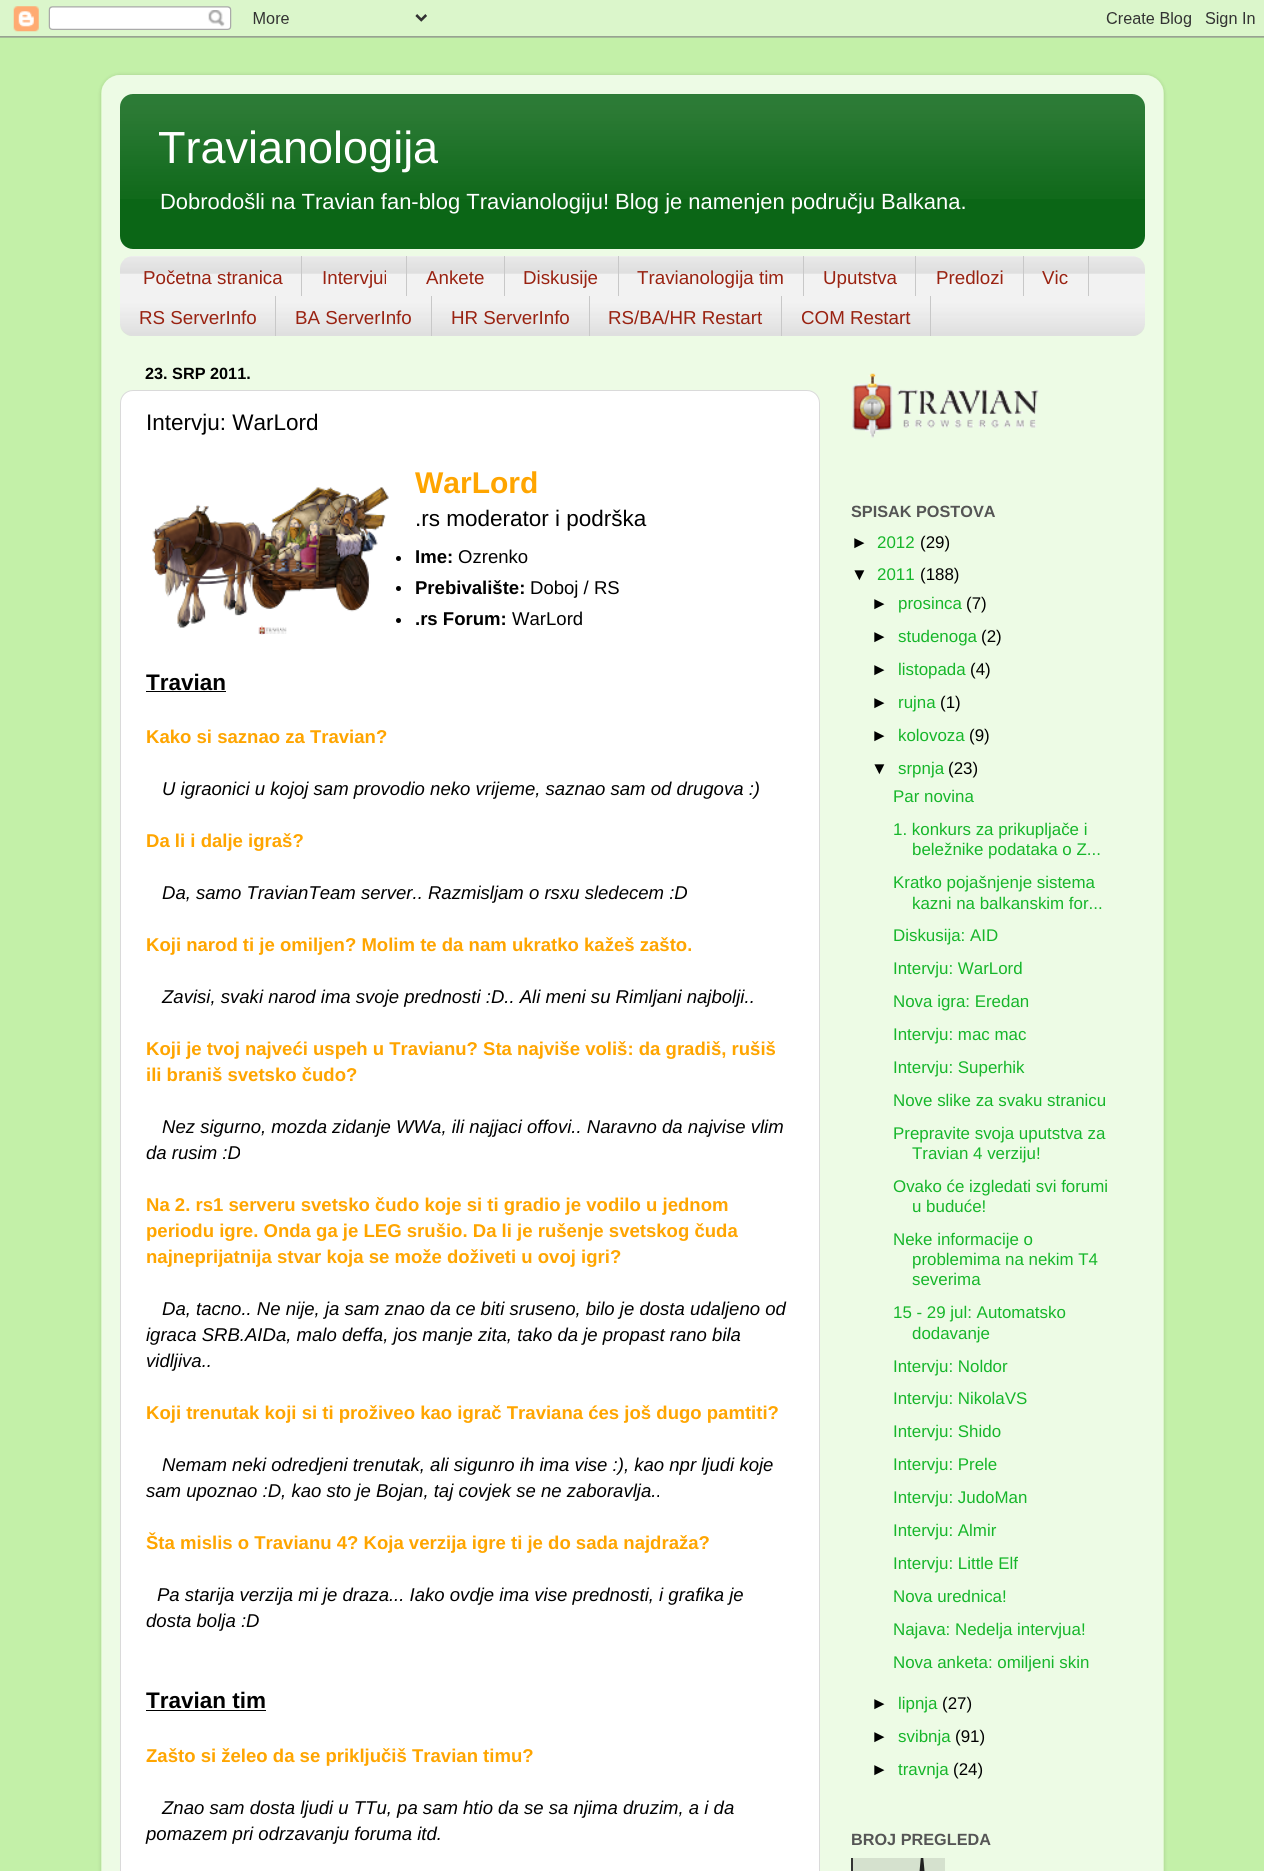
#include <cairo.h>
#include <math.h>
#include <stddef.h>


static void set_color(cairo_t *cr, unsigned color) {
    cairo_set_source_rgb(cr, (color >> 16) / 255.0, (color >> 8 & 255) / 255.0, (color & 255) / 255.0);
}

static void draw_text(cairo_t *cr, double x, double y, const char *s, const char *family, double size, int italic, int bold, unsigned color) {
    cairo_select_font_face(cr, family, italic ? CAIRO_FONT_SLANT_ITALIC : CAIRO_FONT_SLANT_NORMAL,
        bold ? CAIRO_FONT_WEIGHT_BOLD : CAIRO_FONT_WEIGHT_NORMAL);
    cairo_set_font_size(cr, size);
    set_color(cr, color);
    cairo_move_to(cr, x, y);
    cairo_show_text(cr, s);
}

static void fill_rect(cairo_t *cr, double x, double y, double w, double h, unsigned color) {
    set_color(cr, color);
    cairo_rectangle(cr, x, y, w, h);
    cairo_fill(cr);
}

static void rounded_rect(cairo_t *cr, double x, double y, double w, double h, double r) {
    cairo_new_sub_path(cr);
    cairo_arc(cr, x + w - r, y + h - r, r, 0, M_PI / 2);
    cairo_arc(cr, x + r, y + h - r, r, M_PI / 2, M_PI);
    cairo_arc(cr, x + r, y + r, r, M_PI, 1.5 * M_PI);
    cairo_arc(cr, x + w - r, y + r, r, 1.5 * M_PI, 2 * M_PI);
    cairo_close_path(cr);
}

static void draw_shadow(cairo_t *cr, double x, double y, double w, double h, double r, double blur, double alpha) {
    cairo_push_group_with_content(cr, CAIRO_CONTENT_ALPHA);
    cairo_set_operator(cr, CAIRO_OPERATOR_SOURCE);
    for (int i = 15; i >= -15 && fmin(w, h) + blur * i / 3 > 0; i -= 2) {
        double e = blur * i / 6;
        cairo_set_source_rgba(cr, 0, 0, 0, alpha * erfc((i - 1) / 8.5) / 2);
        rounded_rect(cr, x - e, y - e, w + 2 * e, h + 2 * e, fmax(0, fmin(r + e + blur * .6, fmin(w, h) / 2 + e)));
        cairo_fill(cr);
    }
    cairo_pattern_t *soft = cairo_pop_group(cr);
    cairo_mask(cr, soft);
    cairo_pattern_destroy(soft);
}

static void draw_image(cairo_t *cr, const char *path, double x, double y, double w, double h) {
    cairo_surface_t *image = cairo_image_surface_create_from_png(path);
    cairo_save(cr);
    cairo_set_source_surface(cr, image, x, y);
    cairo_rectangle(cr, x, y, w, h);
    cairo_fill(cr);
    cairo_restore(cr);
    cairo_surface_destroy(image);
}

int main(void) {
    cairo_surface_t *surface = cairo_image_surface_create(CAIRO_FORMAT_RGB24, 1264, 1871);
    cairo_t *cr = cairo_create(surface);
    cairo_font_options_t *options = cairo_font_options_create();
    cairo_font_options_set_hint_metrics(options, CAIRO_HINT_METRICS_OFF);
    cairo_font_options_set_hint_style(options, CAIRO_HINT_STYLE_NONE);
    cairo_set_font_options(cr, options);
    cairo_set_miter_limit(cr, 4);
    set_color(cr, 0xC3F0A8);
    cairo_paint(cr);
    draw_image(cr, "assets/img1.png", 0, 0, 1264, 38);
    cairo_save(cr);
    cairo_set_fill_rule(cr, CAIRO_FILL_RULE_EVEN_ODD);
    cairo_new_path(cr);
    cairo_move_to(cr, 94, 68);
    cairo_line_to(cr, 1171, 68);
    cairo_line_to(cr, 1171, 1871);
    cairo_line_to(cr, 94, 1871);
    cairo_close_path(cr);
    cairo_move_to(cr, 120, 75);
    cairo_line_to(cr, 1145, 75);
    cairo_curve_to(cr, 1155.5, 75, 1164, 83.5, 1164, 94);
    cairo_line_to(cr, 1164, 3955);
    cairo_curve_to(cr, 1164, 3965.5, 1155.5, 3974, 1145, 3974);
    cairo_line_to(cr, 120, 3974);
    cairo_curve_to(cr, 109.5, 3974, 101, 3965.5, 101, 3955);
    cairo_line_to(cr, 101, 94);
    cairo_curve_to(cr, 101, 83.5, 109.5, 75, 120, 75);
    cairo_close_path(cr);
    cairo_clip(cr);
    set_color(cr, 0x000000);
    draw_shadow(cr, 101, 75, 1063, 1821, 19, 2, 0.15);
    cairo_restore(cr);
    draw_image(cr, "assets/img2.png", 101, 75, 1063, 1796);
    set_color(cr, 0x0B6616);
    rounded_rect(cr, 120, 94, 1025, 155, 13);
    cairo_fill(cr);
    draw_image(cr, "assets/img3.png", 120, 94, 1025, 105);
    draw_text(cr, 158, 163, "Travianologija", "Liberation Sans", 45, 0, 0, 0xFFFFFF);
    draw_text(cr, 160, 209, "Dobrodošli na Travian fan-blog Travianologiju! Blog je namenjen području Balkana.", "Liberation Sans", 21.95, 0, 0, 0xFFFFFF);
    set_color(cr, 0xF2F2F2);
    rounded_rect(cr, 120, 256, 1025, 80, 13);
    cairo_fill(cr);
    draw_image(cr, "assets/img4.png", 120, 256, 1025, 80);
    fill_rect(cr, 301, 256, 1, 40, 0xC8C8C8);
    draw_text(cr, 143, 284, "Početna stranica", "Liberation Sans", 18.75, 0, 0, 0x992211);
    fill_rect(cr, 406, 256, 1, 40, 0xC8C8C8);
    draw_text(cr, 322, 284, "Intervjui", "Liberation Sans", 18.75, 0, 0, 0x992211);
    fill_rect(cr, 504, 256, 1, 40, 0xC8C8C8);
    draw_text(cr, 426, 284, "Ankete", "Liberation Sans", 18.75, 0, 0, 0x992211);
    fill_rect(cr, 618, 256, 1, 40, 0xC8C8C8);
    draw_text(cr, 523, 284, "Diskusije", "Liberation Sans", 18.75, 0, 0, 0x992211);
    fill_rect(cr, 803, 256, 1, 40, 0xC8C8C8);
    draw_text(cr, 637, 284, "Travianologija tim", "Liberation Sans", 18.75, 0, 0, 0x992211);
    fill_rect(cr, 915, 256, 1, 40, 0xC8C8C8);
    draw_text(cr, 823, 284, "Uputstva", "Liberation Sans", 18.75, 0, 0, 0x992211);
    fill_rect(cr, 1023, 256, 1, 40, 0xC8C8C8);
    draw_text(cr, 936, 284, "Predlozi", "Liberation Sans", 18.75, 0, 0, 0x992211);
    fill_rect(cr, 1088, 256, 1, 40, 0xC8C8C8);
    draw_text(cr, 1042, 284, "Vic", "Liberation Sans", 18.75, 0, 0, 0x992211);
    fill_rect(cr, 275, 296, 1, 40, 0xC8C8C8);
    draw_text(cr, 139, 324, "RS ServerInfo", "Liberation Sans", 18.75, 0, 0, 0x992211);
    fill_rect(cr, 431, 296, 1, 40, 0xC8C8C8);
    draw_text(cr, 295, 324, "BA ServerInfo", "Liberation Sans", 18.75, 0, 0, 0x992211);
    fill_rect(cr, 589, 296, 1, 40, 0xC8C8C8);
    draw_text(cr, 451, 324, "HR ServerInfo", "Liberation Sans", 18.75, 0, 0, 0x992211);
    fill_rect(cr, 781, 296, 1, 40, 0xC8C8C8);
    draw_text(cr, 608, 324, "RS/BA/HR Restart", "Liberation Sans", 18.75, 0, 0, 0x992211);
    fill_rect(cr, 930, 296, 1, 40, 0xC8C8C8);
    draw_text(cr, 801, 324, "COM Restart", "Liberation Sans", 18.75, 0, 0, 0x992211);
    draw_text(cr, 145, 379, "23. SRP 2011.", "Liberation Sans", 16.25, 0, 1, 0x000000);
    set_color(cr, 0xFFFFFF);
    rounded_rect(cr, 120.5, 390.5, 699, 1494, 12.5);
    cairo_fill_preserve(cr);
    set_color(cr, 0xDADADA);
    cairo_set_line_width(cr, 1);
    cairo_stroke(cr);
    draw_text(cr, 146, 430, "Intervju: WarLord", "Liberation Sans", 22.5, 0, 0, 0x000000);
    draw_text(cr, 415, 493, "WarLord", "Liberation Sans", 30, 0, 1, 0xFFA500);
    draw_image(cr, "assets/img5.png", 152, 487, 237, 148);
    draw_text(cr, 415, 526, ".rs moderator i podrška", "Liberation Sans", 22.5, 0, 0, 0x000000);
    cairo_new_path(cr);
    cairo_arc(cr, 398.5, 558.5, 2.5, 0, 2 * M_PI);
    cairo_fill(cr);
    draw_text(cr, 415, 563, "Ime:", "Liberation Sans", 18.55, 0, 1, 0x000000);
    draw_text(cr, 458, 563, "Ozrenko", "Liberation Sans", 18.55, 0, 0, 0x000000);
    cairo_new_path(cr);
    cairo_arc(cr, 398.5, 588.5, 2.5, 0, 2 * M_PI);
    cairo_fill(cr);
    draw_text(cr, 415, 594, "Prebivalište:", "Liberation Sans", 18.55, 0, 1, 0x000000);
    draw_text(cr, 530, 594, "Doboj / RS", "Liberation Sans", 18.55, 0, 0, 0x000000);
    cairo_new_path(cr);
    cairo_arc(cr, 398.5, 620.5, 2.5, 0, 2 * M_PI);
    cairo_fill(cr);
    draw_text(cr, 415, 625, ".rs Forum:", "Liberation Sans", 18.55, 0, 1, 0x000000);
    draw_text(cr, 512, 625, "WarLord", "Liberation Sans", 18.55, 0, 0, 0x000000);
    draw_text(cr, 146, 690, "Travian", "Liberation Sans", 22.5, 0, 1, 0x000000);
    fill_rect(cr, 146, 691, 80, 1, 0x000000);
    draw_text(cr, 146, 743, "Kako si saznao za Travian?", "Liberation Sans", 18.55, 0, 1, 0xFFA500);
    draw_text(cr, 162, 795, "U igraonici u kojoj sam provodio neko vrijeme, saznao sam od drugova :)", "Liberation Sans", 18.55, 1, 0, 0x000000);
    draw_text(cr, 146, 847, "Da li i dalje igraš?", "Liberation Sans", 18.55, 0, 1, 0xFFA500);
    draw_text(cr, 162, 899, "Da, samo TravianTeam server.. Razmisljam o rsxu sledecem :D", "Liberation Sans", 18.55, 1, 0, 0x000000);
    draw_text(cr, 146, 951, "Koji narod ti je omiljen? Molim te da nam ukratko kažeš zašto.", "Liberation Sans", 18.55, 0, 1, 0xFFA500);
    draw_text(cr, 162, 1003, "Zavisi, svaki narod ima svoje prednosti :D.. Ali meni su Rimljani najbolji..", "Liberation Sans", 18.55, 1, 0, 0x000000);
    draw_text(cr, 146, 1055, "Koji je tvoj najveći uspeh u Travianu? Sta najviše voliš: da gradiš, rušiš", "Liberation Sans", 18.55, 0, 1, 0xFFA500);
    draw_text(cr, 146, 1081, "ili braniš svetsko čudo?", "Liberation Sans", 18.55, 0, 1, 0xFFA500);
    draw_text(cr, 162, 1133, "Nez sigurno, mozda zidanje WWa, ili najjaci offovi.. Naravno da najvise vlim", "Liberation Sans", 18.55, 1, 0, 0x000000);
    draw_text(cr, 146, 1159, "da rusim :D", "Liberation Sans", 18.55, 1, 0, 0x000000);
    draw_text(cr, 146, 1211, "Na 2. rs1 serveru svetsko čudo koje si ti gradio je vodilo u jednom", "Liberation Sans", 18.55, 0, 1, 0xFFA500);
    draw_text(cr, 146, 1237, "periodu igre. Onda ga je LEG srušio. Da li je rušenje svetskog čuda", "Liberation Sans", 18.55, 0, 1, 0xFFA500);
    draw_text(cr, 146, 1263, "najneprijatnija stvar koja se može doživeti u ovoj igri?", "Liberation Sans", 18.55, 0, 1, 0xFFA500);
    draw_text(cr, 162, 1315, "Da, tacno.. Ne nije, ja sam znao da ce biti sruseno, bilo je dosta udaljeno od", "Liberation Sans", 18.55, 1, 0, 0x000000);
    draw_text(cr, 146, 1341, "igraca SRB.AIDa, malo deffa, jos manje zita, tako da je propast rano bila", "Liberation Sans", 18.55, 1, 0, 0x000000);
    draw_text(cr, 146, 1367, "vidljiva..", "Liberation Sans", 18.55, 1, 0, 0x000000);
    draw_text(cr, 146, 1419, "Koji trenutak koji si ti proživeo kao igrač Traviana ćes još dugo pamtiti?", "Liberation Sans", 18.55, 0, 1, 0xFFA500);
    draw_text(cr, 162, 1471, "Nemam neki odredjeni trenutak, ali sigunro ih ima vise :), kao npr ljudi koje", "Liberation Sans", 18.55, 1, 0, 0x000000);
    draw_text(cr, 146, 1497, "sam upoznao :D, kao sto je Bojan, taj covjek se ne zaboravlja..", "Liberation Sans", 18.55, 1, 0, 0x000000);
    draw_text(cr, 146, 1549, "Šta mislis o Travianu 4? Koja verzija igre ti je do sada najdraža?", "Liberation Sans", 18.55, 0, 1, 0xFFA500);
    draw_text(cr, 157, 1601, "Pa starija verzija mi je draza... Iako ovdje ima vise prednosti, i grafika je", "Liberation Sans", 18.55, 1, 0, 0x000000);
    draw_text(cr, 146, 1627, "dosta bolja :D", "Liberation Sans", 18.55, 1, 0, 0x000000);
    draw_text(cr, 146, 1708, "Travian tim", "Liberation Sans", 22.5, 0, 1, 0x000000);
    fill_rect(cr, 146, 1710, 120, 1, 0x000000);
    draw_text(cr, 146, 1762, "Zašto si želeo da se priključiš Travian timu?", "Liberation Sans", 18.55, 0, 1, 0xFFA500);
    draw_text(cr, 162, 1814, "Znao sam dosta ljudi u TTu, pa sam htio da se sa njima druzim, a i da", "Liberation Sans", 18.55, 1, 0, 0x000000);
    draw_text(cr, 146, 1840, "pomazem pri odrzavanju foruma itd.", "Liberation Sans", 18.55, 1, 0, 0x000000);
    draw_image(cr, "assets/img6.png", 852, 373, 187, 65);
    draw_text(cr, 851, 517, "SPISAK POSTOVA", "Liberation Sans", 16.25, 0, 1, 0x555555);
    draw_text(cr, 851, 548, "►", "Liberation Sans", 16.9, 0, 0, 0x000000);
    draw_text(cr, 877, 548, "2012", "Liberation Sans", 16.9, 0, 0, 0x16B62A);
    draw_text(cr, 920, 548, "(29)", "Liberation Sans", 16.9, 0, 0, 0x000000);
    draw_text(cr, 851, 580, "▼", "Liberation Sans", 16.9, 0, 0, 0x000000);
    draw_text(cr, 877, 580, "2011", "Liberation Sans", 16.9, 0, 0, 0x16B62A);
    draw_text(cr, 920, 580, "(188)", "Liberation Sans", 16.9, 0, 0, 0x000000);
    draw_text(cr, 871, 609, "►", "Liberation Sans", 16.9, 0, 0, 0x000000);
    draw_text(cr, 898, 609, "prosinca", "Liberation Sans", 16.9, 0, 0, 0x16B62A);
    draw_text(cr, 966, 609, "(7)", "Liberation Sans", 16.9, 0, 0, 0x000000);
    draw_text(cr, 871, 642, "►", "Liberation Sans", 16.9, 0, 0, 0x000000);
    draw_text(cr, 898, 642, "studenoga", "Liberation Sans", 16.9, 0, 0, 0x16B62A);
    draw_text(cr, 981, 642, "(2)", "Liberation Sans", 16.9, 0, 0, 0x000000);
    draw_text(cr, 871, 675, "►", "Liberation Sans", 16.9, 0, 0, 0x000000);
    draw_text(cr, 898, 675, "listopada", "Liberation Sans", 16.9, 0, 0, 0x16B62A);
    draw_text(cr, 970, 675, "(4)", "Liberation Sans", 16.9, 0, 0, 0x000000);
    draw_text(cr, 871, 708, "►", "Liberation Sans", 16.9, 0, 0, 0x000000);
    draw_text(cr, 898, 708, "rujna", "Liberation Sans", 16.9, 0, 0, 0x16B62A);
    draw_text(cr, 940, 708, "(1)", "Liberation Sans", 16.9, 0, 0, 0x000000);
    draw_text(cr, 871, 741, "►", "Liberation Sans", 16.9, 0, 0, 0x000000);
    draw_text(cr, 898, 741, "kolovoza", "Liberation Sans", 16.9, 0, 0, 0x16B62A);
    draw_text(cr, 969, 741, "(9)", "Liberation Sans", 16.9, 0, 0, 0x000000);
    draw_text(cr, 871, 774, "▼", "Liberation Sans", 16.9, 0, 0, 0x000000);
    draw_text(cr, 898, 774, "srpnja", "Liberation Sans", 16.9, 0, 0, 0x16B62A);
    draw_text(cr, 948, 774, "(23)", "Liberation Sans", 16.9, 0, 0, 0x000000);
    draw_text(cr, 893, 802, "Par novina", "Liberation Sans", 16.9, 0, 0, 0x16B62A);
    draw_text(cr, 893, 835, "1. konkurs za prikupljače i", "Liberation Sans", 16.9, 0, 0, 0x16B62A);
    draw_text(cr, 912, 855, "beležnike podataka o Z...", "Liberation Sans", 16.9, 0, 0, 0x16B62A);
    draw_text(cr, 893, 888, "Kratko pojašnjenje sistema", "Liberation Sans", 16.9, 0, 0, 0x16B62A);
    draw_text(cr, 912, 909, "kazni na balkanskim for...", "Liberation Sans", 16.9, 0, 0, 0x16B62A);
    draw_text(cr, 893, 941, "Diskusija: AID", "Liberation Sans", 16.9, 0, 0, 0x16B62A);
    draw_text(cr, 893, 974, "Intervju: WarLord", "Liberation Sans", 16.9, 0, 0, 0x16B62A);
    draw_text(cr, 893, 1007, "Nova igra: Eredan", "Liberation Sans", 16.9, 0, 0, 0x16B62A);
    draw_text(cr, 893, 1040, "Intervju: mac mac", "Liberation Sans", 16.9, 0, 0, 0x16B62A);
    draw_text(cr, 893, 1073, "Intervju: Superhik", "Liberation Sans", 16.9, 0, 0, 0x16B62A);
    draw_text(cr, 893, 1106, "Nove slike za svaku stranicu", "Liberation Sans", 16.9, 0, 0, 0x16B62A);
    draw_text(cr, 893, 1139, "Prepravite svoja uputstva za", "Liberation Sans", 16.9, 0, 0, 0x16B62A);
    draw_text(cr, 912, 1159, "Travian 4 verziju!", "Liberation Sans", 16.9, 0, 0, 0x16B62A);
    draw_text(cr, 893, 1192, "Ovako će izgledati svi forumi", "Liberation Sans", 16.9, 0, 0, 0x16B62A);
    draw_text(cr, 912, 1212, "u buduće!", "Liberation Sans", 16.9, 0, 0, 0x16B62A);
    draw_text(cr, 893, 1245, "Neke informacije o", "Liberation Sans", 16.9, 0, 0, 0x16B62A);
    draw_text(cr, 912, 1265, "problemima na nekim T4", "Liberation Sans", 16.9, 0, 0, 0x16B62A);
    draw_text(cr, 912, 1285, "severima", "Liberation Sans", 16.9, 0, 0, 0x16B62A);
    draw_text(cr, 893, 1318, "15 - 29 jul: Automatsko", "Liberation Sans", 16.9, 0, 0, 0x16B62A);
    draw_text(cr, 912, 1339, "dodavanje", "Liberation Sans", 16.9, 0, 0, 0x16B62A);
    draw_text(cr, 893, 1372, "Intervju: Noldor", "Liberation Sans", 16.9, 0, 0, 0x16B62A);
    draw_text(cr, 893, 1404, "Intervju: NikolaVS", "Liberation Sans", 16.9, 0, 0, 0x16B62A);
    draw_text(cr, 893, 1437, "Intervju: Shido", "Liberation Sans", 16.9, 0, 0, 0x16B62A);
    draw_text(cr, 893, 1470, "Intervju: Prele", "Liberation Sans", 16.9, 0, 0, 0x16B62A);
    draw_text(cr, 893, 1503, "Intervju: JudoMan", "Liberation Sans", 16.9, 0, 0, 0x16B62A);
    draw_text(cr, 893, 1536, "Intervju: Almir", "Liberation Sans", 16.9, 0, 0, 0x16B62A);
    draw_text(cr, 893, 1569, "Intervju: Little Elf", "Liberation Sans", 16.9, 0, 0, 0x16B62A);
    draw_text(cr, 893, 1602, "Nova urednica!", "Liberation Sans", 16.9, 0, 0, 0x16B62A);
    draw_text(cr, 893, 1635, "Najava: Nedelja intervjua!", "Liberation Sans", 16.9, 0, 0, 0x16B62A);
    draw_text(cr, 893, 1668, "Nova anketa: omiljeni skin", "Liberation Sans", 16.9, 0, 0, 0x16B62A);
    draw_text(cr, 871, 1709, "►", "Liberation Sans", 16.9, 0, 0, 0x000000);
    draw_text(cr, 898, 1709, "lipnja", "Liberation Sans", 16.9, 0, 0, 0x16B62A);
    draw_text(cr, 942, 1709, "(27)", "Liberation Sans", 16.9, 0, 0, 0x000000);
    draw_text(cr, 871, 1742, "►", "Liberation Sans", 16.9, 0, 0, 0x000000);
    draw_text(cr, 898, 1742, "svibnja", "Liberation Sans", 16.9, 0, 0, 0x16B62A);
    draw_text(cr, 955, 1742, "(91)", "Liberation Sans", 16.9, 0, 0, 0x000000);
    draw_text(cr, 871, 1775, "►", "Liberation Sans", 16.9, 0, 0, 0x000000);
    draw_text(cr, 898, 1775, "travnja", "Liberation Sans", 16.9, 0, 0, 0x16B62A);
    draw_text(cr, 953, 1775, "(24)", "Liberation Sans", 16.9, 0, 0, 0x000000);
    draw_text(cr, 851, 1845, "BROJ PREGLEDA", "Liberation Sans", 16.25, 0, 1, 0x555555);
    draw_image(cr, "assets/img7.png", 851, 1858, 94, 13);
    cairo_surface_write_to_png(surface, "output.png");
    cairo_font_options_destroy(options);
    cairo_destroy(cr);
    cairo_surface_destroy(surface);
    return 0;
}
